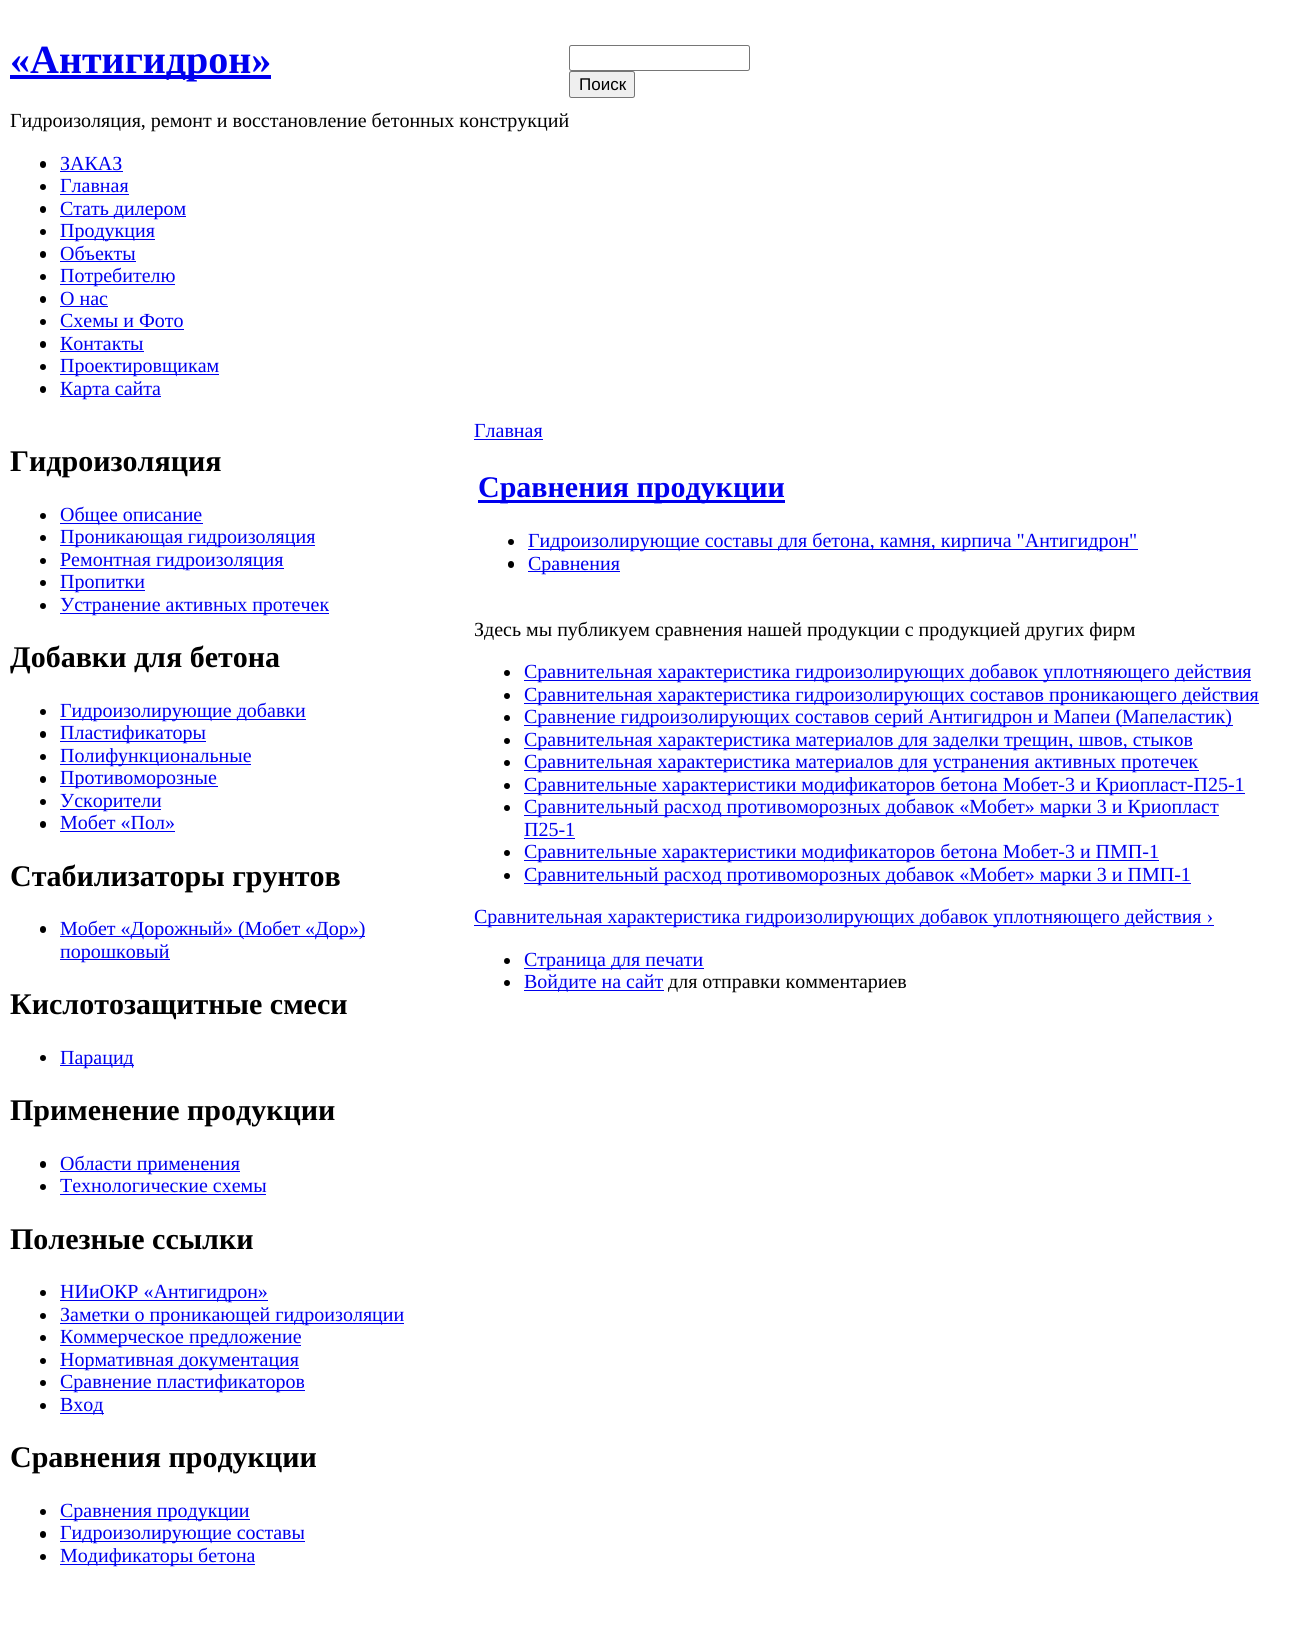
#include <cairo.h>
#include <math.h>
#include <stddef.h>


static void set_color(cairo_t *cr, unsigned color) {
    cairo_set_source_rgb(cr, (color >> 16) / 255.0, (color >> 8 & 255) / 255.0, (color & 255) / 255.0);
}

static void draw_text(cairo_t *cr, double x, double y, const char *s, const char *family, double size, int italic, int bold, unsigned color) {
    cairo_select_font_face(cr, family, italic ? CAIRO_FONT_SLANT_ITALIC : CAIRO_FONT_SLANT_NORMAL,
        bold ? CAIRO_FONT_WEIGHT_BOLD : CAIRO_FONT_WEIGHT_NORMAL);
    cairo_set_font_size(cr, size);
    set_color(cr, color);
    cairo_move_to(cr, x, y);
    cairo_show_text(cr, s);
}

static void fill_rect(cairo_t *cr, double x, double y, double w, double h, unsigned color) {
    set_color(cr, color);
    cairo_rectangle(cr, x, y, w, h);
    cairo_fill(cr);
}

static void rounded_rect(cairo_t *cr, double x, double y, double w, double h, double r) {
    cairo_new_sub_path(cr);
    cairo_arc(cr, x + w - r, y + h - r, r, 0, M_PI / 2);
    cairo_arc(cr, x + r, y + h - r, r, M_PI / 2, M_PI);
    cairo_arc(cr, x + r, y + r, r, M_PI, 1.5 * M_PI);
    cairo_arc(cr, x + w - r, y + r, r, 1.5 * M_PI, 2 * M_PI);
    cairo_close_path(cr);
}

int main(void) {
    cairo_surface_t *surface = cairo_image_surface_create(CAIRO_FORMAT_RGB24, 1305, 1628);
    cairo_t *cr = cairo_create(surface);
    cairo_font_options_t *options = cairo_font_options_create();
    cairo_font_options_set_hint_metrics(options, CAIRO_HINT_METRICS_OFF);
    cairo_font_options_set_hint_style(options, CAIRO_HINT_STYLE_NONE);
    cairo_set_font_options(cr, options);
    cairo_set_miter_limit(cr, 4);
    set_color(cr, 0xFFFFFF);
    cairo_paint(cr);
    fill_rect(cr, 10, 75, 261, 4, 0x0000EE);
    draw_text(cr, 10, 73, "«Антигидрон»", "Liberation Serif", 40, 0, 1, 0x0000EE);
    draw_text(cr, 10, 127, "Гидроизоляция, ремонт и восстановление бетонных конструкций", "Liberation Serif", 20, 0, 0, 0x000000);
    rounded_rect(cr, 569.5, 45.5, 180, 25, 2);
    set_color(cr, 0x767676);
    cairo_set_line_width(cr, 1);
    cairo_stroke(cr);
    set_color(cr, 0xEFEFEF);
    rounded_rect(cr, 569.5, 71.5, 65, 26, 2);
    cairo_fill_preserve(cr);
    set_color(cr, 0x767676);
    cairo_stroke(cr);
    draw_text(cr, 579, 90, "Поиск", "Liberation Sans", 17, 0, 0, 0x000000);
    rounded_rect(cr, 40, 161, 6, 7, 3);
    cairo_fill(cr);
    draw_text(cr, 60, 170, "ЗАКАЗ", "Liberation Serif", 20, 0, 0, 0x0000EE);
    fill_rect(cr, 60, 171, 63, 1, 0x0000EE);
    set_color(cr, 0x000000);
    cairo_new_path(cr);
    cairo_arc(cr, 43, 187, 3, 0, 2 * M_PI);
    cairo_fill(cr);
    draw_text(cr, 60, 192, "Главная", "Liberation Serif", 20, 0, 0, 0x0000EE);
    fill_rect(cr, 60, 194, 69, 1, 0x0000EE);
    set_color(cr, 0x000000);
    rounded_rect(cr, 40, 206, 6, 7, 3);
    cairo_fill(cr);
    fill_rect(cr, 60, 216, 126, 1, 0x0000EE);
    draw_text(cr, 60, 215, "Стать дилером", "Liberation Serif", 20, 0, 0, 0x0000EE);
    set_color(cr, 0x000000);
    cairo_new_path(cr);
    cairo_arc(cr, 43, 232, 3, 0, 2 * M_PI);
    cairo_fill(cr);
    fill_rect(cr, 60, 239, 95, 1, 0x0000EE);
    draw_text(cr, 60, 237, "Продукция", "Liberation Serif", 20, 0, 0, 0x0000EE);
    set_color(cr, 0x000000);
    rounded_rect(cr, 40, 251, 6, 7, 3);
    cairo_fill(cr);
    draw_text(cr, 60, 260, "Объекты", "Liberation Serif", 20, 0, 0, 0x0000EE);
    fill_rect(cr, 60, 261, 76, 1, 0x0000EE);
    set_color(cr, 0x000000);
    cairo_new_path(cr);
    cairo_arc(cr, 43, 277, 3, 0, 2 * M_PI);
    cairo_fill(cr);
    fill_rect(cr, 60, 284, 115, 1, 0x0000EE);
    draw_text(cr, 60, 282, "Потребителю", "Liberation Serif", 20, 0, 0, 0x0000EE);
    set_color(cr, 0x000000);
    rounded_rect(cr, 40, 296, 6, 7, 3);
    cairo_fill(cr);
    draw_text(cr, 60, 305, "О нас", "Liberation Serif", 20, 0, 0, 0x0000EE);
    fill_rect(cr, 60, 306, 48, 1, 0x0000EE);
    set_color(cr, 0x000000);
    cairo_new_path(cr);
    cairo_arc(cr, 43, 322, 3, 0, 2 * M_PI);
    cairo_fill(cr);
    draw_text(cr, 60, 327, "Схемы и Фото", "Liberation Serif", 20, 0, 0, 0x0000EE);
    fill_rect(cr, 60, 329, 124, 1, 0x0000EE);
    set_color(cr, 0x000000);
    rounded_rect(cr, 40, 341, 6, 7, 3);
    cairo_fill(cr);
    draw_text(cr, 60, 350, "Контакты", "Liberation Serif", 20, 0, 0, 0x0000EE);
    fill_rect(cr, 60, 351, 84, 1, 0x0000EE);
    set_color(cr, 0x000000);
    cairo_new_path(cr);
    cairo_arc(cr, 43, 367, 3, 0, 2 * M_PI);
    cairo_fill(cr);
    fill_rect(cr, 60, 374, 159, 1, 0x0000EE);
    draw_text(cr, 60, 372, "Проектировщикам", "Liberation Serif", 20, 0, 0, 0x0000EE);
    set_color(cr, 0x000000);
    rounded_rect(cr, 40, 386, 6, 7, 3);
    cairo_fill(cr);
    fill_rect(cr, 60, 396, 101, 1, 0x0000EE);
    draw_text(cr, 60, 395, "Карта сайта", "Liberation Serif", 20, 0, 0, 0x0000EE);
    draw_text(cr, 10, 471, "Гидроизоляция", "Liberation Serif", 30, 0, 1, 0x000000);
    cairo_new_path(cr);
    cairo_arc(cr, 43, 516, 3, 0, 2 * M_PI);
    cairo_fill(cr);
    fill_rect(cr, 60, 523, 143, 1, 0x0000EE);
    draw_text(cr, 60, 521, "Общее описание", "Liberation Serif", 20, 0, 0, 0x0000EE);
    set_color(cr, 0x000000);
    cairo_new_path(cr);
    cairo_arc(cr, 43, 538, 3, 0, 2 * M_PI);
    cairo_fill(cr);
    fill_rect(cr, 60, 545, 255, 1, 0x0000EE);
    draw_text(cr, 60, 543, "Проникающая гидроизоляция", "Liberation Serif", 20, 0, 0, 0x0000EE);
    set_color(cr, 0x000000);
    cairo_new_path(cr);
    cairo_arc(cr, 43, 561, 3, 0, 2 * M_PI);
    cairo_fill(cr);
    fill_rect(cr, 60, 568, 224, 1, 0x0000EE);
    draw_text(cr, 60, 566, "Ремонтная гидроизоляция", "Liberation Serif", 20, 0, 0, 0x0000EE);
    set_color(cr, 0x000000);
    cairo_new_path(cr);
    cairo_arc(cr, 43, 583, 3, 0, 2 * M_PI);
    cairo_fill(cr);
    fill_rect(cr, 60, 590, 85, 1, 0x0000EE);
    draw_text(cr, 60, 588, "Пропитки", "Liberation Serif", 20, 0, 0, 0x0000EE);
    set_color(cr, 0x000000);
    cairo_new_path(cr);
    cairo_arc(cr, 43, 606, 3, 0, 2 * M_PI);
    cairo_fill(cr);
    fill_rect(cr, 60, 613, 269, 1, 0x0000EE);
    draw_text(cr, 60, 611, "Устранение активных протечек", "Liberation Serif", 20, 0, 0, 0x0000EE);
    draw_text(cr, 10, 667, "Добавки для бетона", "Liberation Serif", 30, 0, 1, 0x000000);
    cairo_new_path(cr);
    cairo_arc(cr, 43, 712, 3, 0, 2 * M_PI);
    cairo_fill(cr);
    fill_rect(cr, 60, 719, 246, 1, 0x0000EE);
    draw_text(cr, 60, 717, "Гидроизолирующие добавки", "Liberation Serif", 20, 0, 0, 0x0000EE);
    set_color(cr, 0x000000);
    rounded_rect(cr, 40, 731, 6, 7, 3);
    cairo_fill(cr);
    fill_rect(cr, 60, 741, 146, 1, 0x0000EE);
    draw_text(cr, 60, 739, "Пластификаторы", "Liberation Serif", 20, 0, 0, 0x0000EE);
    set_color(cr, 0x000000);
    cairo_new_path(cr);
    cairo_arc(cr, 43, 757, 3, 0, 2 * M_PI);
    cairo_fill(cr);
    fill_rect(cr, 60, 764, 191, 1, 0x0000EE);
    draw_text(cr, 60, 762, "Полифункциональные", "Liberation Serif", 20, 0, 0, 0x0000EE);
    set_color(cr, 0x000000);
    rounded_rect(cr, 40, 776, 6, 7, 3);
    cairo_fill(cr);
    fill_rect(cr, 60, 786, 158, 1, 0x0000EE);
    draw_text(cr, 60, 784, "Противоморозные", "Liberation Serif", 20, 0, 0, 0x0000EE);
    set_color(cr, 0x000000);
    cairo_new_path(cr);
    cairo_arc(cr, 43, 802, 3, 0, 2 * M_PI);
    cairo_fill(cr);
    fill_rect(cr, 60, 809, 101, 1, 0x0000EE);
    draw_text(cr, 60, 807, "Ускорители", "Liberation Serif", 20, 0, 0, 0x0000EE);
    set_color(cr, 0x000000);
    rounded_rect(cr, 40, 821, 6, 7, 3);
    cairo_fill(cr);
    draw_text(cr, 60, 829, "Мобет «Пол»", "Liberation Serif", 20, 0, 0, 0x0000EE);
    fill_rect(cr, 60, 831, 115, 1, 0x0000EE);
    draw_text(cr, 10, 886, "Стабилизаторы грунтов", "Liberation Serif", 30, 0, 1, 0x000000);
    rounded_rect(cr, 40, 926, 6, 7, 3);
    cairo_fill(cr);
    fill_rect(cr, 60, 936, 305, 1, 0x0000EE);
    draw_text(cr, 60, 935, "Мобет «Дорожный» (Мобет «Дор»)", "Liberation Serif", 20, 0, 0, 0x0000EE);
    fill_rect(cr, 60, 959, 110, 1, 0x0000EE);
    draw_text(cr, 60, 958, "порошковый", "Liberation Serif", 20, 0, 0, 0x0000EE);
    draw_text(cr, 10, 1014, "Кислотозащитные смеси", "Liberation Serif", 30, 0, 1, 0x000000);
    cairo_new_path(cr);
    cairo_arc(cr, 43, 1058, 3, 0, 2 * M_PI);
    cairo_fill(cr);
    fill_rect(cr, 60, 1065, 74, 1, 0x0000EE);
    draw_text(cr, 60, 1064, "Парацид", "Liberation Serif", 20, 0, 0, 0x0000EE);
    draw_text(cr, 10, 1120, "Применение продукции", "Liberation Serif", 30, 0, 1, 0x000000);
    rounded_rect(cr, 40, 1161, 6, 7, 3);
    cairo_fill(cr);
    fill_rect(cr, 60, 1171, 180, 1, 0x0000EE);
    draw_text(cr, 60, 1170, "Области применения", "Liberation Serif", 20, 0, 0, 0x0000EE);
    set_color(cr, 0x000000);
    cairo_new_path(cr);
    cairo_arc(cr, 43, 1187, 3, 0, 2 * M_PI);
    cairo_fill(cr);
    draw_text(cr, 60, 1192, "Технологические схемы", "Liberation Serif", 20, 0, 0, 0x0000EE);
    fill_rect(cr, 60, 1194, 206, 1, 0x0000EE);
    draw_text(cr, 10, 1249, "Полезные ссылки", "Liberation Serif", 30, 0, 1, 0x000000);
    cairo_new_path(cr);
    cairo_arc(cr, 43, 1293, 3, 0, 2 * M_PI);
    cairo_fill(cr);
    fill_rect(cr, 60, 1300, 208, 1, 0x0000EE);
    draw_text(cr, 60, 1298, "НИиОКР «Антигидрон»", "Liberation Serif", 20, 0, 0, 0x0000EE);
    set_color(cr, 0x000000);
    cairo_new_path(cr);
    cairo_arc(cr, 43, 1316, 3, 0, 2 * M_PI);
    cairo_fill(cr);
    fill_rect(cr, 60, 1323, 344, 1, 0x0000EE);
    draw_text(cr, 60, 1321, "Заметки о проникающей гидроизоляции", "Liberation Serif", 20, 0, 0, 0x0000EE);
    set_color(cr, 0x000000);
    cairo_new_path(cr);
    cairo_arc(cr, 43, 1338, 3, 0, 2 * M_PI);
    cairo_fill(cr);
    fill_rect(cr, 60, 1345, 241, 1, 0x0000EE);
    draw_text(cr, 60, 1343, "Коммерческое предложение", "Liberation Serif", 20, 0, 0, 0x0000EE);
    set_color(cr, 0x000000);
    cairo_new_path(cr);
    cairo_arc(cr, 43, 1361, 3, 0, 2 * M_PI);
    cairo_fill(cr);
    fill_rect(cr, 60, 1368, 239, 1, 0x0000EE);
    draw_text(cr, 60, 1366, "Нормативная документация", "Liberation Serif", 20, 0, 0, 0x0000EE);
    set_color(cr, 0x000000);
    cairo_new_path(cr);
    cairo_arc(cr, 43, 1383, 3, 0, 2 * M_PI);
    cairo_fill(cr);
    fill_rect(cr, 60, 1390, 245, 1, 0x0000EE);
    draw_text(cr, 60, 1388, "Сравнение пластификаторов", "Liberation Serif", 20, 0, 0, 0x0000EE);
    set_color(cr, 0x000000);
    cairo_new_path(cr);
    cairo_arc(cr, 43, 1406, 3, 0, 2 * M_PI);
    cairo_fill(cr);
    fill_rect(cr, 60, 1413, 44, 1, 0x0000EE);
    draw_text(cr, 60, 1411, "Вход", "Liberation Serif", 20, 0, 0, 0x0000EE);
    draw_text(cr, 10, 1467, "Сравнения продукции", "Liberation Serif", 30, 0, 1, 0x000000);
    cairo_new_path(cr);
    cairo_arc(cr, 43, 1512, 3, 0, 2 * M_PI);
    cairo_fill(cr);
    fill_rect(cr, 60, 1519, 190, 1, 0x0000EE);
    draw_text(cr, 60, 1517, "Сравнения продукции", "Liberation Serif", 20, 0, 0, 0x0000EE);
    set_color(cr, 0x000000);
    rounded_rect(cr, 40, 1531, 6, 7, 3);
    cairo_fill(cr);
    fill_rect(cr, 60, 1541, 245, 1, 0x0000EE);
    draw_text(cr, 60, 1539, "Гидроизолирующие составы", "Liberation Serif", 20, 0, 0, 0x0000EE);
    set_color(cr, 0x000000);
    cairo_new_path(cr);
    cairo_arc(cr, 43, 1557, 3, 0, 2 * M_PI);
    cairo_fill(cr);
    fill_rect(cr, 60, 1564, 195, 1, 0x0000EE);
    draw_text(cr, 60, 1562, "Модификаторы бетона", "Liberation Serif", 20, 0, 0, 0x0000EE);
    draw_text(cr, 474, 437, "Главная", "Liberation Serif", 20, 0, 0, 0x0000EE);
    fill_rect(cr, 474, 439, 69, 1, 0x0000EE);
    fill_rect(cr, 478, 500, 307, 3, 0x0000EE);
    draw_text(cr, 478, 497, "Сравнения продукции", "Liberation Serif", 30, 0, 1, 0x0000EE);
    set_color(cr, 0x000000);
    cairo_new_path(cr);
    cairo_arc(cr, 511, 542, 3, 0, 2 * M_PI);
    cairo_fill(cr);
    fill_rect(cr, 528, 549, 610, 1, 0x0000EE);
    draw_text(cr, 528, 547, "Гидроизолирующие составы для бетона, камня, кирпича \"Антигидрон\"", "Liberation Serif", 20, 0, 0, 0x0000EE);
    set_color(cr, 0x000000);
    rounded_rect(cr, 508, 561, 6, 7, 3);
    cairo_fill(cr);
    fill_rect(cr, 528, 571, 92, 1, 0x0000EE);
    draw_text(cr, 528, 570, "Сравнения", "Liberation Serif", 20, 0, 0, 0x0000EE);
    draw_text(cr, 474, 636, "Здесь мы публикуем сравнения нашей продукции с продукцией других фирм", "Liberation Serif", 20, 0, 0, 0x000000);
    cairo_new_path(cr);
    cairo_arc(cr, 507, 673, 3, 0, 2 * M_PI);
    cairo_fill(cr);
    fill_rect(cr, 524, 680, 727, 1, 0x0000EE);
    draw_text(cr, 524, 678, "Сравнительная характеристика гидроизолирующих добавок уплотняющего действия", "Liberation Serif", 20, 0, 0, 0x0000EE);
    set_color(cr, 0x000000);
    cairo_new_path(cr);
    cairo_arc(cr, 507, 696, 3, 0, 2 * M_PI);
    cairo_fill(cr);
    fill_rect(cr, 524, 703, 735, 1, 0x0000EE);
    draw_text(cr, 524, 701, "Сравнительная характеристика гидроизолирующих составов проникающего действия", "Liberation Serif", 20, 0, 0, 0x0000EE);
    set_color(cr, 0x000000);
    cairo_new_path(cr);
    cairo_arc(cr, 507, 718, 3, 0, 2 * M_PI);
    cairo_fill(cr);
    fill_rect(cr, 524, 725, 709, 1, 0x0000EE);
    draw_text(cr, 524, 723, "Сравнение гидроизолирующих составов серий Антигидрон и Мапеи (Мапеластик)", "Liberation Serif", 20, 0, 0, 0x0000EE);
    set_color(cr, 0x000000);
    cairo_new_path(cr);
    cairo_arc(cr, 507, 741, 3, 0, 2 * M_PI);
    cairo_fill(cr);
    fill_rect(cr, 524, 748, 669, 1, 0x0000EE);
    draw_text(cr, 524, 746, "Сравнительная характеристика материалов для заделки трещин, швов, стыков", "Liberation Serif", 20, 0, 0, 0x0000EE);
    set_color(cr, 0x000000);
    cairo_new_path(cr);
    cairo_arc(cr, 507, 763, 3, 0, 2 * M_PI);
    cairo_fill(cr);
    fill_rect(cr, 524, 770, 675, 1, 0x0000EE);
    draw_text(cr, 524, 768, "Сравнительная характеристика материалов для устранения активных протечек", "Liberation Serif", 20, 0, 0, 0x0000EE);
    set_color(cr, 0x000000);
    cairo_new_path(cr);
    cairo_arc(cr, 507, 786, 3, 0, 2 * M_PI);
    cairo_fill(cr);
    fill_rect(cr, 524, 793, 721, 1, 0x0000EE);
    draw_text(cr, 524, 791, "Сравнительные характеристики модификаторов бетона Мобет-3 и Криопласт-П25-1", "Liberation Serif", 20, 0, 0, 0x0000EE);
    set_color(cr, 0x000000);
    cairo_new_path(cr);
    cairo_arc(cr, 507, 808, 3, 0, 2 * M_PI);
    cairo_fill(cr);
    fill_rect(cr, 524, 815, 695, 1, 0x0000EE);
    draw_text(cr, 524, 813, "Сравнительный расход противоморозных добавок «Мобет» марки 3 и Криопласт", "Liberation Serif", 20, 0, 0, 0x0000EE);
    draw_text(cr, 524, 836, "П25-1", "Liberation Serif", 20, 0, 0, 0x0000EE);
    fill_rect(cr, 524, 838, 51, 1, 0x0000EE);
    set_color(cr, 0x000000);
    cairo_new_path(cr);
    cairo_arc(cr, 507, 853, 3, 0, 2 * M_PI);
    cairo_fill(cr);
    fill_rect(cr, 524, 860, 635, 1, 0x0000EE);
    draw_text(cr, 524, 858, "Сравнительные характеристики модификаторов бетона Мобет-3 и ПМП-1", "Liberation Serif", 20, 0, 0, 0x0000EE);
    set_color(cr, 0x000000);
    cairo_new_path(cr);
    cairo_arc(cr, 507, 876, 3, 0, 2 * M_PI);
    cairo_fill(cr);
    fill_rect(cr, 524, 883, 667, 1, 0x0000EE);
    draw_text(cr, 524, 881, "Сравнительный расход противоморозных добавок «Мобет» марки 3 и ПМП-1", "Liberation Serif", 20, 0, 0, 0x0000EE);
    fill_rect(cr, 474, 925, 740, 1, 0x0000EE);
    draw_text(cr, 474, 923, "Сравнительная характеристика гидроизолирующих добавок уплотняющего действия ›", "Liberation Serif", 20, 0, 0, 0x0000EE);
    set_color(cr, 0x000000);
    cairo_new_path(cr);
    cairo_arc(cr, 507, 961, 3, 0, 2 * M_PI);
    cairo_fill(cr);
    fill_rect(cr, 524, 968, 180, 1, 0x0000EE);
    draw_text(cr, 524, 966, "Страница для печати", "Liberation Serif", 20, 0, 0, 0x0000EE);
    set_color(cr, 0x000000);
    cairo_new_path(cr);
    cairo_arc(cr, 507, 983, 3, 0, 2 * M_PI);
    cairo_fill(cr);
    fill_rect(cr, 524, 990, 140, 1, 0x0000EE);
    draw_text(cr, 524, 988, "Войдите на сайт", "Liberation Serif", 20, 0, 0, 0x0000EE);
    draw_text(cr, 668, 988, "для отправки комментариев", "Liberation Serif", 20, 0, 0, 0x000000);
    cairo_surface_write_to_png(surface, "output.png");
    cairo_font_options_destroy(options);
    cairo_destroy(cr);
    cairo_surface_destroy(surface);
    return 0;
}
